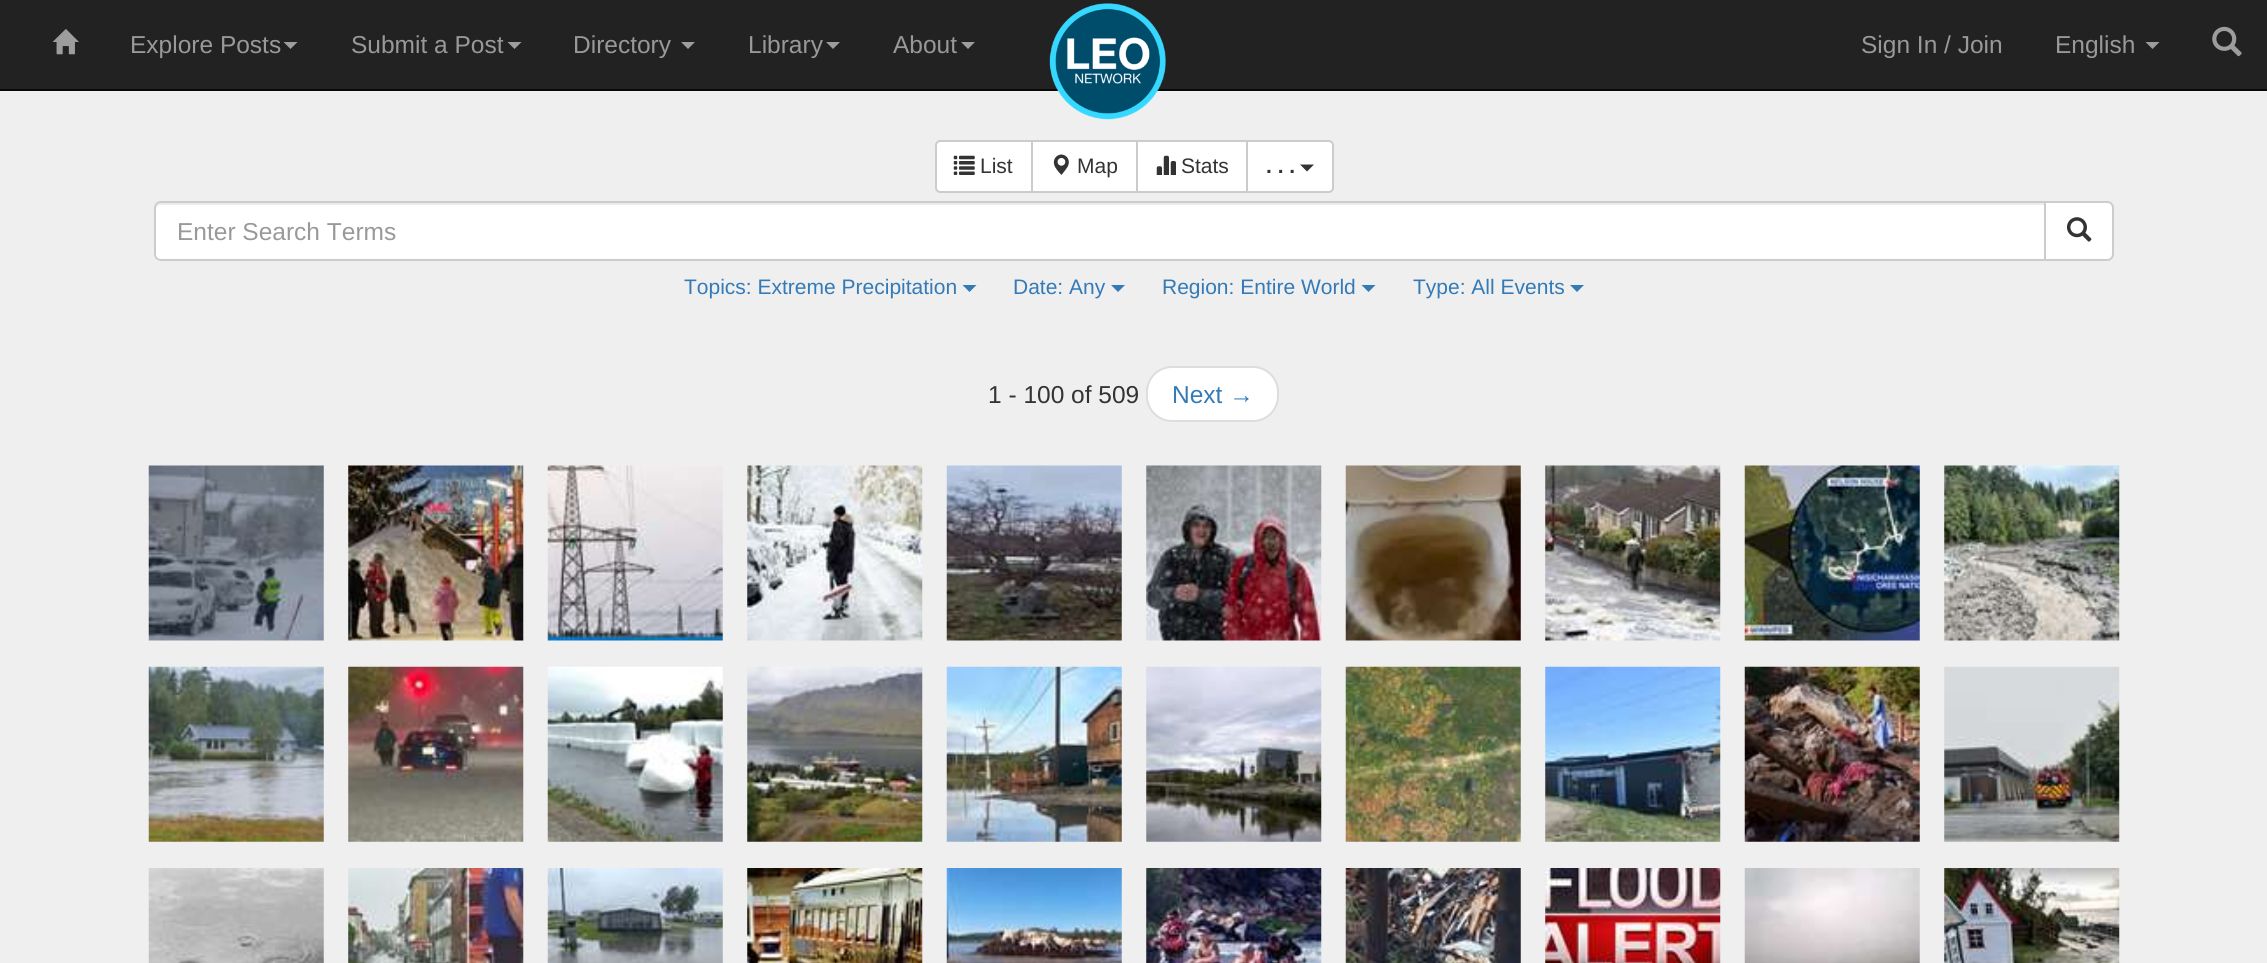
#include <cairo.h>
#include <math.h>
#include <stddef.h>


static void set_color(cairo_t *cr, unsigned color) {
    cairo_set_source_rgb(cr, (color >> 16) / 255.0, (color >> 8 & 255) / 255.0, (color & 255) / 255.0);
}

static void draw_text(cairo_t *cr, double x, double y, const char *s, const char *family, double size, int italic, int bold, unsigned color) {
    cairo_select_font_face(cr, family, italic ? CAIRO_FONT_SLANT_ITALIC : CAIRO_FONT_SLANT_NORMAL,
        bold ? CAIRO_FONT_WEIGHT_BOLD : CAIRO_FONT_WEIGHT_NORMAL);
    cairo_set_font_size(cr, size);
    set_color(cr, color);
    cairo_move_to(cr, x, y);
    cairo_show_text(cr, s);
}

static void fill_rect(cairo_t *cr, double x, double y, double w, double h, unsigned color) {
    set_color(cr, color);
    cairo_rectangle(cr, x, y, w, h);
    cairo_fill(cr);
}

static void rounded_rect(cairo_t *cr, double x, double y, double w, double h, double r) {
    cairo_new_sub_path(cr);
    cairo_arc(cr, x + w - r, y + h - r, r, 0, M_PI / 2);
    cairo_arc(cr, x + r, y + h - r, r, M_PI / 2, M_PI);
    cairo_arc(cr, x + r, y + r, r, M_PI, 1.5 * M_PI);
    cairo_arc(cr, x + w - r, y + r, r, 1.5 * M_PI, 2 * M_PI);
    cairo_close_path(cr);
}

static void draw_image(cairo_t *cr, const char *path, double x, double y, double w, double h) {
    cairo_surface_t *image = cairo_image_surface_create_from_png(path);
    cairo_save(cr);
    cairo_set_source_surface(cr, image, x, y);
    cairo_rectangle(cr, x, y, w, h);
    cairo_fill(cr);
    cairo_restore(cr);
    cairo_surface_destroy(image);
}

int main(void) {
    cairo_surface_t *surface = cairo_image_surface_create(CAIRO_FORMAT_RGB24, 2267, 963);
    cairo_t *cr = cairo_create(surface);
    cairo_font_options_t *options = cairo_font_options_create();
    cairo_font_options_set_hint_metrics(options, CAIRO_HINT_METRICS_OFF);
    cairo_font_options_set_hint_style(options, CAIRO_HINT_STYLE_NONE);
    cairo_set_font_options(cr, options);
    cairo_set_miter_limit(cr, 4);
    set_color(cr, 0xEFEFEF);
    cairo_paint(cr);
    fill_rect(cr, 0, 0, 2267, 89, 0x222222);
    fill_rect(cr, 0, 89, 2267, 2, 0x080808);
    draw_image(cr, "assets/img1.png", 1049, 3, 117, 117);
    draw_image(cr, "assets/img2.png", 52, 29, 27, 26);
    draw_text(cr, 130, 53, "Explore Posts", "Liberation Sans", 24.5, 0, 0, 0x999999);
    set_color(cr, 0x9D9D9D);
    cairo_new_path(cr);
    cairo_move_to(cr, 283.5, 42);
    cairo_line_to(cr, 297.5, 42);
    cairo_line_to(cr, 290.5, 49);
    cairo_close_path(cr);
    cairo_fill(cr);
    draw_text(cr, 351, 53, "Submit a Post", "Liberation Sans", 24.5, 0, 0, 0x999999);
    set_color(cr, 0x9D9D9D);
    cairo_new_path(cr);
    cairo_move_to(cr, 507.5, 42);
    cairo_line_to(cr, 521.5, 42);
    cairo_line_to(cr, 514.5, 49);
    cairo_close_path(cr);
    cairo_fill(cr);
    draw_text(cr, 573, 53, "Directory", "Liberation Sans", 24.5, 0, 0, 0x999999);
    set_color(cr, 0x9D9D9D);
    cairo_new_path(cr);
    cairo_move_to(cr, 681, 42);
    cairo_line_to(cr, 695, 42);
    cairo_line_to(cr, 688, 49);
    cairo_close_path(cr);
    cairo_fill(cr);
    draw_text(cr, 748, 53, "Library", "Liberation Sans", 24.5, 0, 0, 0x999999);
    set_color(cr, 0x9D9D9D);
    cairo_new_path(cr);
    cairo_move_to(cr, 826, 42);
    cairo_line_to(cr, 840, 42);
    cairo_line_to(cr, 833, 49);
    cairo_close_path(cr);
    cairo_fill(cr);
    draw_text(cr, 893, 53, "About", "Liberation Sans", 24.5, 0, 0, 0x999999);
    set_color(cr, 0x9D9D9D);
    cairo_new_path(cr);
    cairo_move_to(cr, 961, 42);
    cairo_line_to(cr, 975, 42);
    cairo_line_to(cr, 968, 49);
    cairo_close_path(cr);
    cairo_fill(cr);
    draw_text(cr, 1861, 53, "Sign In / Join", "Liberation Sans", 24.5, 0, 0, 0x999999);
    draw_text(cr, 2055, 53, "English", "Liberation Sans", 24.5, 0, 0, 0x999999);
    set_color(cr, 0x9D9D9D);
    cairo_new_path(cr);
    cairo_move_to(cr, 2145.5, 42);
    cairo_line_to(cr, 2159.5, 42);
    cairo_line_to(cr, 2152.5, 49);
    cairo_close_path(cr);
    cairo_fill(cr);
    draw_image(cr, "assets/img3.png", 2212, 26, 30, 31);
    set_color(cr, 0xFFFFFF);
    cairo_new_path(cr);
    cairo_move_to(cr, 940, 141);
    cairo_line_to(cr, 1032, 141);
    cairo_line_to(cr, 1032, 192);
    cairo_line_to(cr, 940, 192);
    cairo_curve_to(cr, 938, 192, 936, 190, 936, 188);
    cairo_line_to(cr, 936, 145);
    cairo_curve_to(cr, 936, 143, 938, 141, 940, 141);
    cairo_close_path(cr);
    cairo_fill_preserve(cr);
    set_color(cr, 0xCCCCCC);
    cairo_stroke(cr);
    draw_image(cr, "assets/img4.png", 953, 155, 22, 20);
    draw_text(cr, 980, 173, "List", "Liberation Sans", 21, 0, 0, 0x333333);
    set_color(cr, 0xFFFFFF);
    cairo_rectangle(cr, 1032, 141, 105, 51);
    cairo_fill_preserve(cr);
    set_color(cr, 0xCCCCCC);
    cairo_stroke(cr);
    draw_image(cr, "assets/img5.png", 1053, 154, 16, 21);
    draw_text(cr, 1077, 173, "Map", "Liberation Sans", 21, 0, 0, 0x333333);
    set_color(cr, 0xFFFFFF);
    cairo_rectangle(cr, 1137, 141, 110, 51);
    cairo_fill_preserve(cr);
    set_color(cr, 0xCCCCCC);
    cairo_stroke(cr);
    draw_image(cr, "assets/img6.png", 1156, 155, 20, 20);
    draw_text(cr, 1181, 173, "Stats", "Liberation Sans", 21, 0, 0, 0x333333);
    set_color(cr, 0xFFFFFF);
    cairo_new_path(cr);
    cairo_move_to(cr, 1247, 141);
    cairo_line_to(cr, 1329, 141);
    cairo_curve_to(cr, 1331, 141, 1333, 143, 1333, 145);
    cairo_line_to(cr, 1333, 188);
    cairo_curve_to(cr, 1333, 190, 1331, 192, 1329, 192);
    cairo_line_to(cr, 1247, 192);
    cairo_close_path(cr);
    cairo_fill_preserve(cr);
    set_color(cr, 0xCCCCCC);
    cairo_stroke(cr);
    draw_text(cr, 1266, 173, ". . .", "Liberation Sans", 21, 0, 1, 0x333333);
    cairo_new_path(cr);
    cairo_move_to(cr, 1300, 164.5);
    cairo_line_to(cr, 1314, 164.5);
    cairo_line_to(cr, 1307, 171.5);
    cairo_close_path(cr);
    cairo_fill(cr);
    set_color(cr, 0xFFFFFF);
    cairo_new_path(cr);
    cairo_move_to(cr, 161, 201);
    cairo_line_to(cr, 2046, 201);
    cairo_line_to(cr, 2046, 261);
    cairo_line_to(cr, 161, 261);
    cairo_curve_to(cr, 157, 261, 154, 258, 154, 254);
    cairo_line_to(cr, 154, 208);
    cairo_curve_to(cr, 154, 204, 157, 201, 161, 201);
    cairo_close_path(cr);
    cairo_fill(cr);
    set_color(cr, 0xECECEC);
    cairo_new_path(cr);
    cairo_move_to(cr, 161, 205);
    cairo_line_to(cr, 2044, 205);
    cairo_line_to(cr, 2044, 203);
    cairo_line_to(cr, 161, 203);
    cairo_curve_to(cr, 157, 203, 156, 207, 156, 210);
    cairo_curve_to(cr, 156, 207, 158, 205, 161, 205);
    cairo_close_path(cr);
    cairo_fill(cr);
    cairo_new_path(cr);
    cairo_move_to(cr, 161, 202);
    cairo_line_to(cr, 2045, 202);
    cairo_line_to(cr, 2045, 260);
    cairo_line_to(cr, 161, 260);
    cairo_curve_to(cr, 157.5, 260, 155, 257.5, 155, 254);
    cairo_line_to(cr, 155, 208);
    cairo_curve_to(cr, 155, 204.5, 157.5, 202, 161, 202);
    cairo_close_path(cr);
    set_color(cr, 0xCCCCCC);
    cairo_stroke(cr);
    draw_text(cr, 177, 240, "Enter Search Terms", "Liberation Sans", 24.5, 0, 0, 0x999999);
    set_color(cr, 0xFFFFFF);
    cairo_new_path(cr);
    cairo_move_to(cr, 2045, 202);
    cairo_line_to(cr, 2107, 202);
    cairo_curve_to(cr, 2110.5, 202, 2113, 204.5, 2113, 208);
    cairo_line_to(cr, 2113, 254);
    cairo_curve_to(cr, 2113, 257.5, 2110.5, 260, 2107, 260);
    cairo_line_to(cr, 2045, 260);
    cairo_close_path(cr);
    cairo_fill_preserve(cr);
    set_color(cr, 0xCCCCCC);
    cairo_stroke(cr);
    draw_image(cr, "assets/img7.png", 2066, 217, 26, 25);
    draw_text(cr, 684, 294, "Topics: Extreme Precipitation", "Liberation Sans", 21, 0, 0, 0x337AB7);
    cairo_new_path(cr);
    cairo_move_to(cr, 962.5, 285);
    cairo_line_to(cr, 976.5, 285);
    cairo_line_to(cr, 969.5, 292);
    cairo_close_path(cr);
    cairo_fill(cr);
    draw_text(cr, 1013, 294, "Date: Any", "Liberation Sans", 21, 0, 0, 0x337AB7);
    cairo_new_path(cr);
    cairo_move_to(cr, 1111, 285);
    cairo_line_to(cr, 1125, 285);
    cairo_line_to(cr, 1118, 292);
    cairo_close_path(cr);
    cairo_fill(cr);
    draw_text(cr, 1162, 294, "Region: Entire World", "Liberation Sans", 21, 0, 0, 0x337AB7);
    cairo_new_path(cr);
    cairo_move_to(cr, 1361.5, 285);
    cairo_line_to(cr, 1375.5, 285);
    cairo_line_to(cr, 1368.5, 292);
    cairo_close_path(cr);
    cairo_fill(cr);
    draw_text(cr, 1413, 294, "Type: All Events", "Liberation Sans", 21, 0, 0, 0x337AB7);
    cairo_new_path(cr);
    cairo_move_to(cr, 1570, 285);
    cairo_line_to(cr, 1584, 285);
    cairo_line_to(cr, 1577, 292);
    cairo_close_path(cr);
    cairo_fill(cr);
    draw_text(cr, 988, 403, "1 - 100 of 509", "Liberation Sans", 24.5, 0, 0, 0x333333);
    set_color(cr, 0xFFFFFF);
    rounded_rect(cr, 1147, 367, 131, 54, 25);
    cairo_fill_preserve(cr);
    set_color(cr, 0xDDDDDD);
    cairo_stroke(cr);
    draw_text(cr, 1172, 403, "Next →", "Liberation Sans", 24.5, 0, 0, 0x337AB7);
    draw_image(cr, "assets/img8.png", 148, 465, 176, 176);
    draw_image(cr, "assets/img9.png", 348, 465, 176, 176);
    draw_image(cr, "assets/img10.png", 547, 465, 176, 176);
    draw_image(cr, "assets/img11.png", 747, 465, 176, 176);
    draw_image(cr, "assets/img12.png", 946, 465, 176, 176);
    draw_image(cr, "assets/img13.png", 1146, 465, 176, 176);
    draw_image(cr, "assets/img14.png", 1345, 465, 176, 176);
    draw_image(cr, "assets/img15.png", 1545, 465, 176, 176);
    draw_image(cr, "assets/img16.png", 1744, 465, 176, 176);
    draw_image(cr, "assets/img17.png", 1944, 465, 176, 176);
    draw_image(cr, "assets/img18.png", 148, 666, 176, 176);
    draw_image(cr, "assets/img19.png", 348, 666, 176, 176);
    draw_image(cr, "assets/img20.png", 547, 666, 176, 176);
    draw_image(cr, "assets/img21.png", 747, 666, 176, 176);
    draw_image(cr, "assets/img22.png", 946, 666, 176, 176);
    draw_image(cr, "assets/img23.png", 1146, 666, 176, 176);
    draw_image(cr, "assets/img24.png", 1345, 666, 176, 176);
    draw_image(cr, "assets/img25.png", 1545, 666, 176, 176);
    draw_image(cr, "assets/img26.png", 1744, 666, 176, 176);
    draw_image(cr, "assets/img27.png", 1944, 666, 176, 176);
    draw_image(cr, "assets/img28.png", 148, 868, 176, 95);
    draw_image(cr, "assets/img29.png", 348, 868, 176, 95);
    draw_image(cr, "assets/img30.png", 547, 868, 176, 95);
    draw_image(cr, "assets/img31.png", 747, 868, 176, 95);
    draw_image(cr, "assets/img32.png", 946, 868, 176, 95);
    draw_image(cr, "assets/img33.png", 1146, 868, 176, 95);
    draw_image(cr, "assets/img34.png", 1345, 868, 176, 95);
    draw_image(cr, "assets/img35.png", 1545, 868, 176, 95);
    draw_image(cr, "assets/img36.png", 1744, 868, 176, 95);
    draw_image(cr, "assets/img37.png", 1944, 868, 176, 95);
    cairo_surface_write_to_png(surface, "output.png");
    cairo_font_options_destroy(options);
    cairo_destroy(cr);
    cairo_surface_destroy(surface);
    return 0;
}
